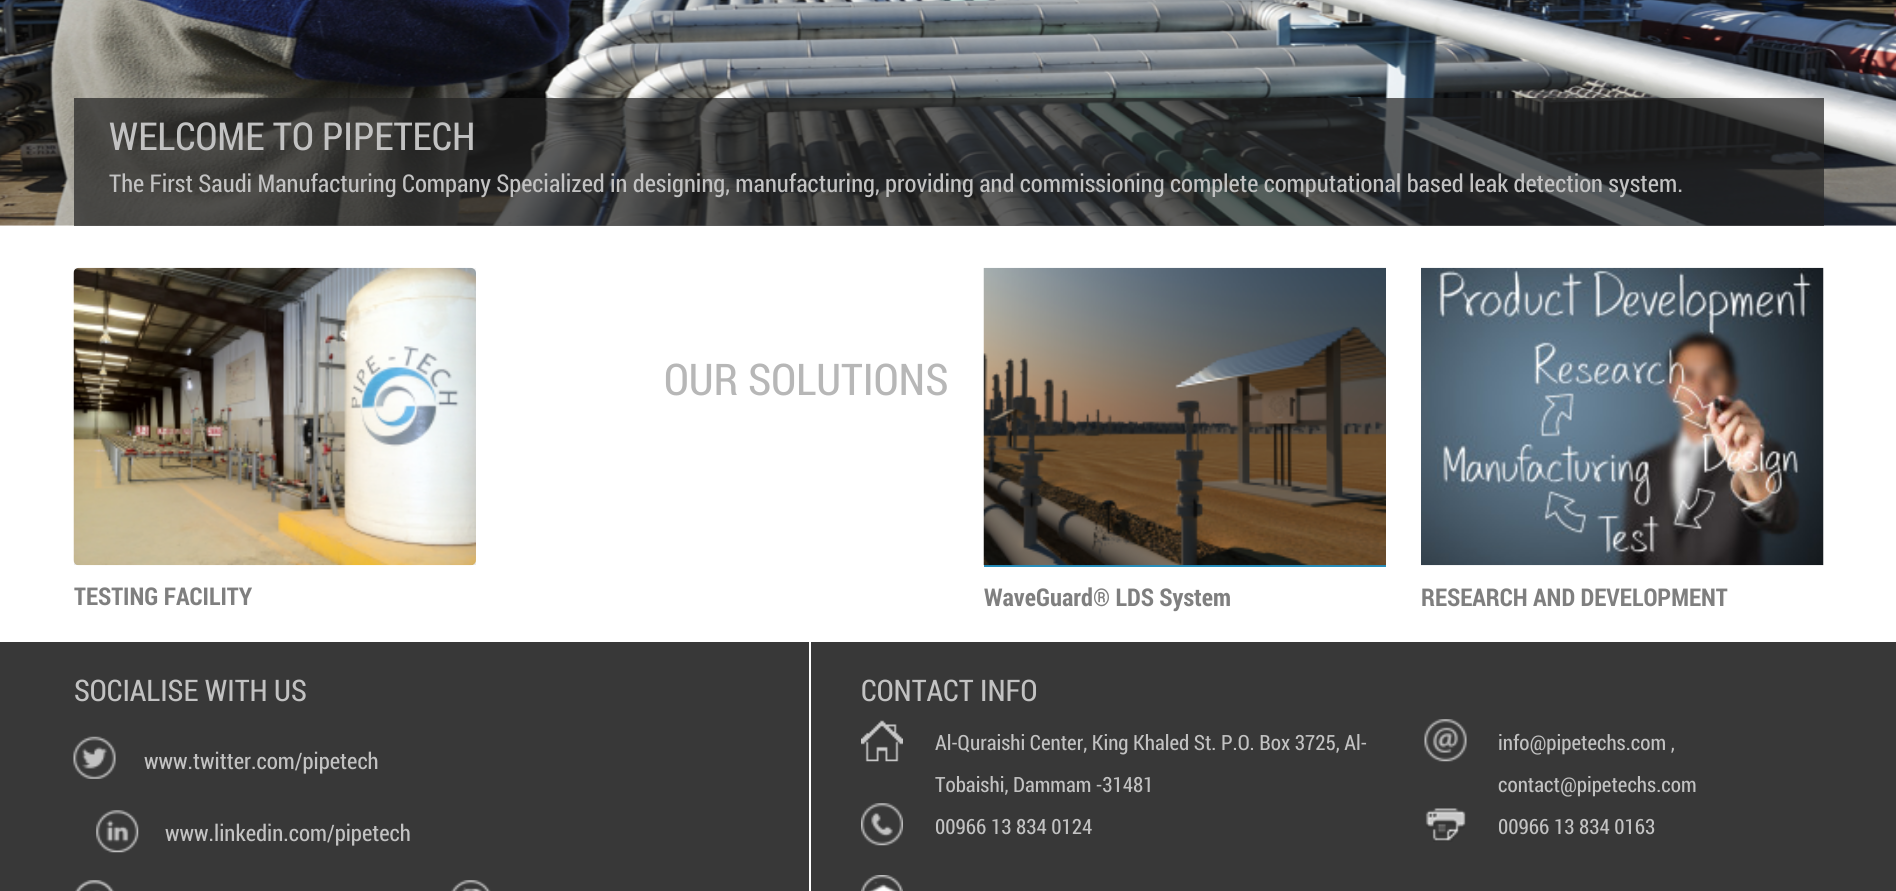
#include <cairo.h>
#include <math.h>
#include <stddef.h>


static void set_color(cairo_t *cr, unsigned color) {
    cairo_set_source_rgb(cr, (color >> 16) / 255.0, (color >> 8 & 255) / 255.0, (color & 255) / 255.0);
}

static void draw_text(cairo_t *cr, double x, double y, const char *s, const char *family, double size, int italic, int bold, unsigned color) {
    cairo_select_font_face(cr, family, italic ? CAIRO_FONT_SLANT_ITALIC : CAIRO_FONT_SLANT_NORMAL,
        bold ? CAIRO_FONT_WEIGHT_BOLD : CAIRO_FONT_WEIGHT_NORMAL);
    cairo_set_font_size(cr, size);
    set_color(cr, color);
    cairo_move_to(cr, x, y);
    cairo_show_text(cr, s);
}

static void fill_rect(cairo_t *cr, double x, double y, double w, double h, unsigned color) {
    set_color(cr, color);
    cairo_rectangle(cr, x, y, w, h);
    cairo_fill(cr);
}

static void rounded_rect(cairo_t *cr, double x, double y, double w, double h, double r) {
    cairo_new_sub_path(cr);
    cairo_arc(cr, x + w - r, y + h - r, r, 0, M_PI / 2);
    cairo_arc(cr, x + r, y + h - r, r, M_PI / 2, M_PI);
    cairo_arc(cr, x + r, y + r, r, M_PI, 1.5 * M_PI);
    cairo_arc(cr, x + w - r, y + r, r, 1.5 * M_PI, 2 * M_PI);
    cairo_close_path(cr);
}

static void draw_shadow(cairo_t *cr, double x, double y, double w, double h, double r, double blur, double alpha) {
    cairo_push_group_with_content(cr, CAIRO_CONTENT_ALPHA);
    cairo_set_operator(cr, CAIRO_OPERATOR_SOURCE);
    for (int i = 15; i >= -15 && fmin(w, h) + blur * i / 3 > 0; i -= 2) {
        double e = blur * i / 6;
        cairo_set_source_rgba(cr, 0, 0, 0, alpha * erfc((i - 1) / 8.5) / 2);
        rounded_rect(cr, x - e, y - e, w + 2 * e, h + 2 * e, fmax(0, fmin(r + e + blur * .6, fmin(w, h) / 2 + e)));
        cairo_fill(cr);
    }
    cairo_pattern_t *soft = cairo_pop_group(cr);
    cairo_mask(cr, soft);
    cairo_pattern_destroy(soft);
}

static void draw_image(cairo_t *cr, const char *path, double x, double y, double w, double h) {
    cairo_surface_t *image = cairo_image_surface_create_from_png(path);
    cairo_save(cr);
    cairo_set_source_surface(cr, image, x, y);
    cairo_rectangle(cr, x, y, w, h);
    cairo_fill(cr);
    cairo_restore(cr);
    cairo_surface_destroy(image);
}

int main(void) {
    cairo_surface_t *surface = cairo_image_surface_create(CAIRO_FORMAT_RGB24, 1896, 891);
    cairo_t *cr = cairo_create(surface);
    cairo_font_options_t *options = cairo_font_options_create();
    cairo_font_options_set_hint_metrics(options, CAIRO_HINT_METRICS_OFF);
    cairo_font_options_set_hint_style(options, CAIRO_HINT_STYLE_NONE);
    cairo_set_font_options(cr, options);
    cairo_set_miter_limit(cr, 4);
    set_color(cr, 0xFFFFFF);
    cairo_paint(cr);
    draw_image(cr, "assets/img1.png", 0, 0, 1896, 226);
    cairo_set_source_rgba(cr, 0.133, 0.133, 0.133, 0.7);
    cairo_rectangle(cr, 74, 98, 1750, 128);
    cairo_fill(cr);
    draw_text(cr, 109, 150, "WELCOME TO PIPETECH", "Roboto Condensed", 38.5, 0, 0, 0xC2C2C2);
    draw_text(cr, 109, 192, "The First Saudi Manufacturing Company Specialized in designing, manufacturing, providing and commissioning complete computational based leak detection system.", "Roboto Condensed", 24.5, 0, 0, 0xC2C2C2);
    draw_text(cr, 664, 395, "OUR SOLUTIONS", "Roboto Condensed", 43.75, 0, 0, 0xB7B7B7);
    cairo_save(cr);
    cairo_rectangle(cr, 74, 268, 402, 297);
    cairo_clip(cr);
    set_color(cr, 0x000000);
    draw_shadow(cr, 74, 270, 402, 297, 5, 3.5, 0.2);
    cairo_restore(cr);
    draw_image(cr, "assets/img2.png", 73, 267, 403, 299);
    cairo_save(cr);
    cairo_rectangle(cr, 74, 268, 437, 402);
    cairo_clip(cr);
    draw_text(cr, 74, 605, "TESTING FACILITY", "Roboto Condensed", 24.5, 0, 1, 0x7F7F7F);
    cairo_restore(cr);
    fill_rect(cr, 984, 565, 402, 2, 0x258EBD);
    draw_image(cr, "assets/img3.png", 983, 267, 403, 299);
    draw_text(cr, 984, 606, "WaveGuard® LDS System", "Roboto Condensed", 24.5, 0, 1, 0x7F7F7F);
    draw_image(cr, "assets/img4.png", 1421, 267, 403, 299);
    draw_text(cr, 1421, 606, "RESEARCH AND DEVELOPMENT", "Roboto Condensed", 24.5, 0, 1, 0x7F7F7F);
    fill_rect(cr, 0, 642, 1896, 249, 0x383838);
    fill_rect(cr, 809, 642, 2, 249, 0xFFFFFF);
    draw_text(cr, 74, 701, "SOCIALISE WITH US", "Roboto Condensed", 29.75, 0, 0, 0xC2C2C2);
    draw_image(cr, "assets/img5.png", 73, 736, 43, 43);
    draw_text(cr, 144, 769, "www.twitter.com/pipetech", "Roboto Condensed", 22.75, 0, 0, 0xC2C2C2);
    draw_image(cr, "assets/img6.png", 96, 810, 43, 43);
    draw_text(cr, 165, 841, "www.linkedin.com/pipetech", "Roboto Condensed", 22.75, 0, 0, 0xC2C2C2);
    draw_image(cr, "assets/img7.png", 75, 880, 40, 11);
    draw_image(cr, "assets/img8.png", 451, 880, 40, 11);
    draw_text(cr, 861, 701, "CONTACT INFO", "Roboto Condensed", 29.75, 0, 0, 0xC2C2C2);
    draw_image(cr, "assets/img9.png", 861, 720, 42, 42);
    draw_text(cr, 935, 750, "Al-Quraishi Center, King Khaled St. P.O. Box 3725, Al-", "Roboto Condensed", 21, 0, 0, 0xC2C2C2);
    draw_text(cr, 935, 792, "Tobaishi, Dammam -31481", "Roboto Condensed", 21, 0, 0, 0xC2C2C2);
    draw_image(cr, "assets/img10.png", 1424, 719, 43, 43);
    draw_text(cr, 1498, 750, "info@pipetechs.com ,", "Roboto Condensed", 21, 0, 0, 0xC2C2C2);
    draw_text(cr, 1498, 792, "contact@pipetechs.com", "Roboto Condensed", 21, 0, 0, 0xC2C2C2);
    draw_image(cr, "assets/img11.png", 861, 803, 42, 43);
    draw_text(cr, 935, 834, "00966 13 834 0124", "Roboto Condensed", 21, 0, 0, 0xC2C2C2);
    draw_image(cr, "assets/img12.png", 1425, 808, 41, 34);
    draw_text(cr, 1498, 834, "00966 13 834 0163", "Roboto Condensed", 21, 0, 0, 0xC2C2C2);
    draw_image(cr, "assets/img13.png", 861, 875, 42, 16);
    cairo_surface_write_to_png(surface, "output.png");
    cairo_font_options_destroy(options);
    cairo_destroy(cr);
    cairo_surface_destroy(surface);
    return 0;
}
